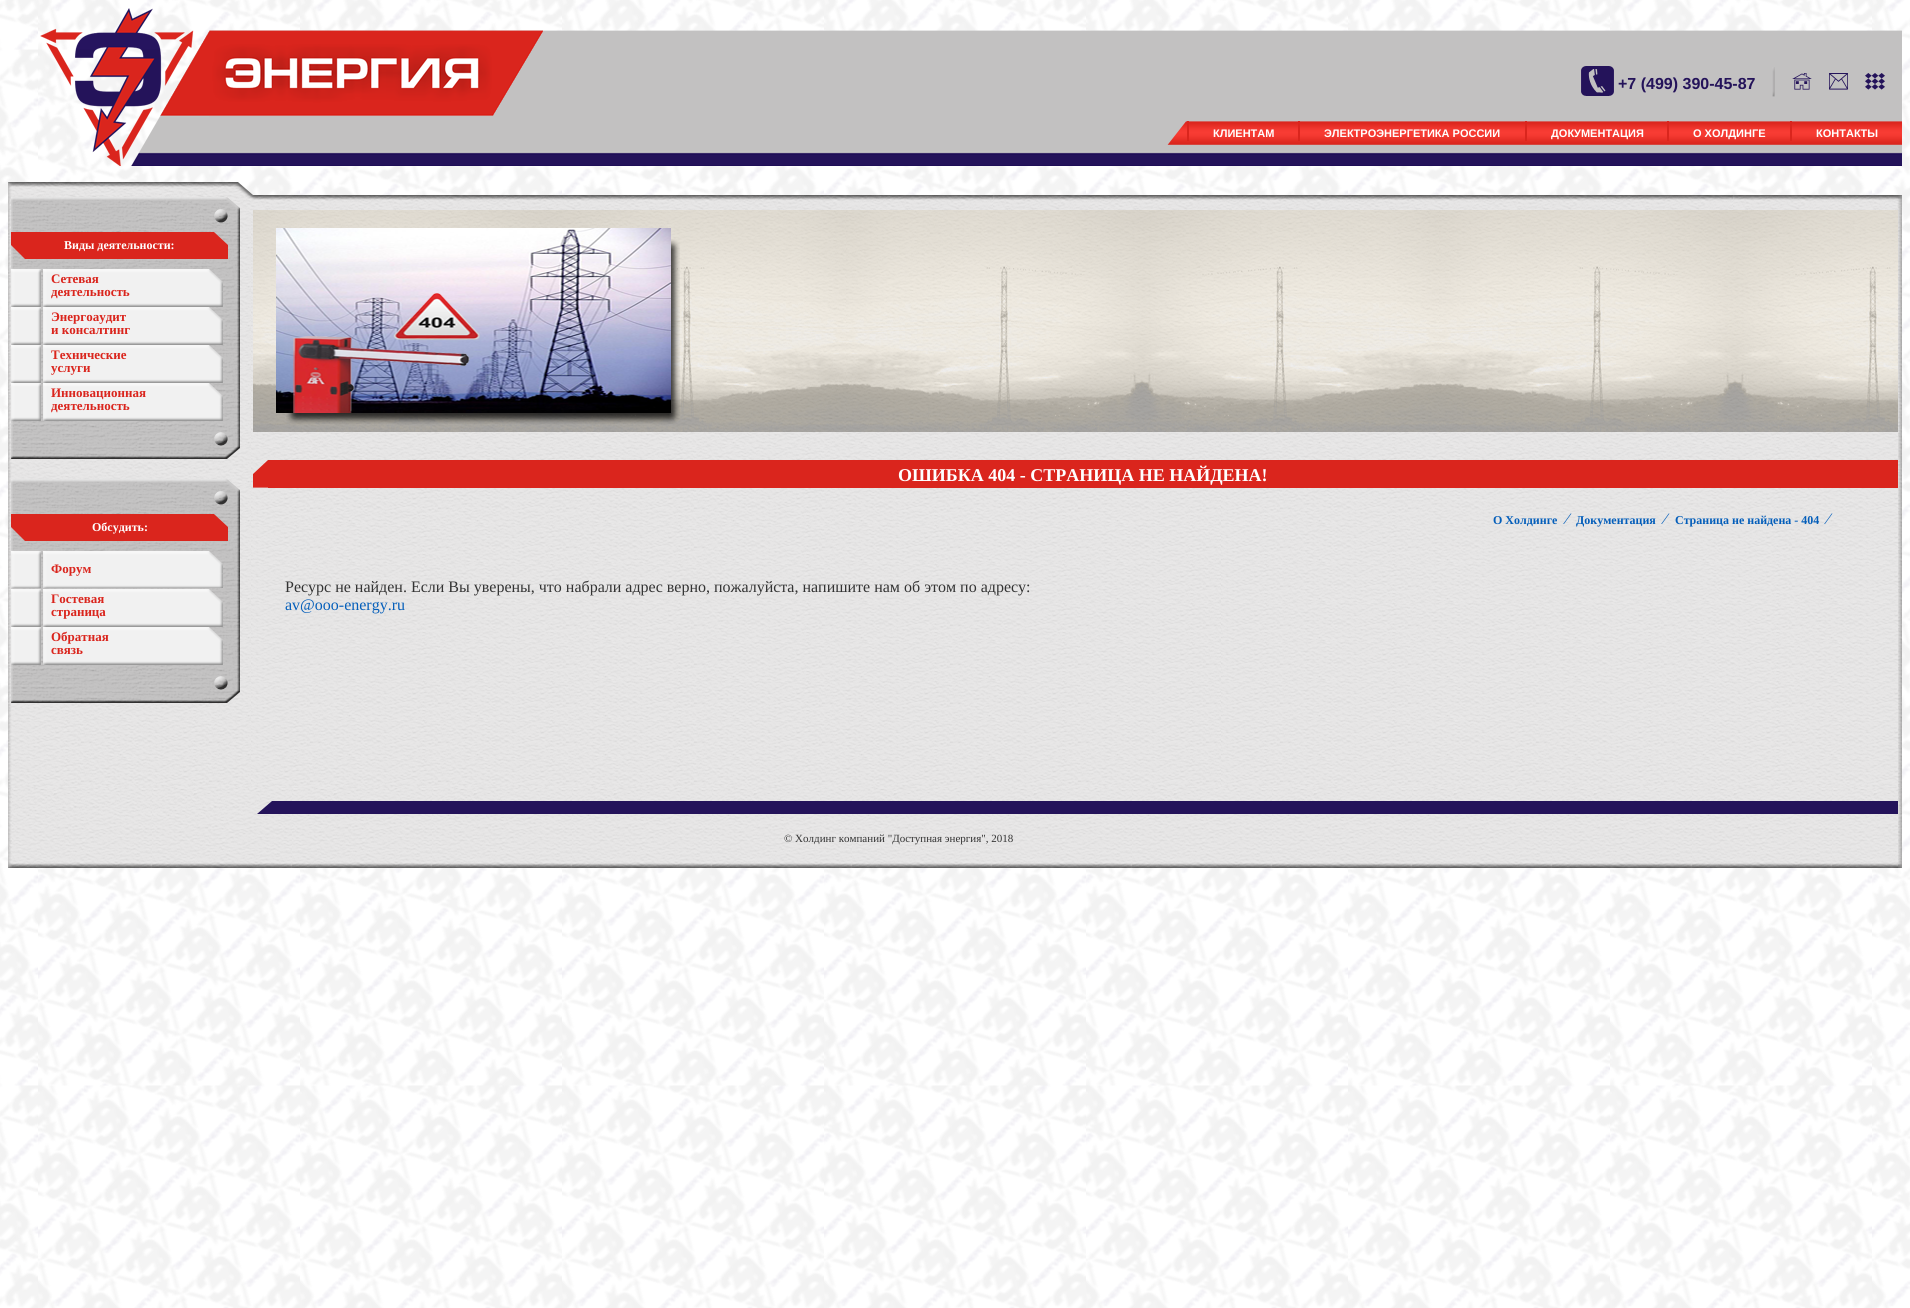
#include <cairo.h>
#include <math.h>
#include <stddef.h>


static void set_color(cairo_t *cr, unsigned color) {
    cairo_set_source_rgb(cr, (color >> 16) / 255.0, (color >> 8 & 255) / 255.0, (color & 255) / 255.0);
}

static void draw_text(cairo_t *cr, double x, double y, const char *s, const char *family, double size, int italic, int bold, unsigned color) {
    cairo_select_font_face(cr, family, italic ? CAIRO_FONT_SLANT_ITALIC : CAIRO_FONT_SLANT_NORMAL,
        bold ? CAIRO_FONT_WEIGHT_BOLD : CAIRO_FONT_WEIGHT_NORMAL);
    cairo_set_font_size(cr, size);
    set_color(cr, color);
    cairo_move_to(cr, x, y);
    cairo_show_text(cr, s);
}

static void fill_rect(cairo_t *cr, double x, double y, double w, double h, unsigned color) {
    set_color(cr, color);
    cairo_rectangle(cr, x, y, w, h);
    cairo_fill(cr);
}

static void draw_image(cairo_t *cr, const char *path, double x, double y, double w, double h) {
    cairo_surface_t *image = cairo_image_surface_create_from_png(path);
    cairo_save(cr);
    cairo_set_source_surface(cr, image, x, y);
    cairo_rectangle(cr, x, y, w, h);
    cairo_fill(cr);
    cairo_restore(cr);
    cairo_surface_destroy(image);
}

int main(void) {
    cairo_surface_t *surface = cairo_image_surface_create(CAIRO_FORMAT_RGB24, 1910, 1308);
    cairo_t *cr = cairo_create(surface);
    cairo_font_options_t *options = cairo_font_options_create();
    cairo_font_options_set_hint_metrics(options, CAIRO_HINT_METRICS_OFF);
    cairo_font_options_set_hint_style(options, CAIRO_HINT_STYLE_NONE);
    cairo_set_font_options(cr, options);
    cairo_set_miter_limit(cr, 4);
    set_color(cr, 0xFFFFFF);
    cairo_paint(cr);
    draw_image(cr, "assets/img1.png", 0, 0, 1910, 1308);
    draw_image(cr, "assets/img3.png", 40, 8, 169, 158);
    draw_image(cr, "assets/img4.png", 209, 30, 1693, 136);
    draw_image(cr, "assets/img2.png", 160, 30, 383, 86);
    draw_image(cr, "assets/img5.png", 1581, 66, 33, 30);
    draw_text(cr, 1618, 89, "+7 (499) 390-45-87", "Liberation Sans", 16, 0, 1, 0x24135A);
    draw_image(cr, "assets/img6.png", 1772, 67, 3, 30);
    draw_image(cr, "assets/img7.png", 1792, 73, 20, 17);
    draw_image(cr, "assets/img8.png", 1829, 73, 19, 17);
    draw_image(cr, "assets/img9.png", 1865, 73, 20, 17);
    draw_image(cr, "assets/img10.png", 1167, 121, 20, 24);
    draw_image(cr, "assets/img11.png", 1187, 121, 715, 24);
    fill_rect(cr, 1187, 121, 2, 20, 0xDA251D);
    draw_text(cr, 1213, 137, "КЛИЕНТАМ", "Liberation Sans", 11, 0, 1, 0xFFFFFF);
    fill_rect(cr, 1298, 121, 2, 20, 0xDA251D);
    draw_text(cr, 1324, 137, "ЭЛЕКТРОЭНЕРГЕТИКА РОССИИ", "Liberation Sans", 11, 0, 1, 0xFFFFFF);
    fill_rect(cr, 1525, 121, 2, 20, 0xDA251D);
    draw_text(cr, 1551, 137, "ДОКУМЕНТАЦИЯ", "Liberation Sans", 11, 0, 1, 0xFFFFFF);
    fill_rect(cr, 1667, 121, 2, 20, 0xDA251D);
    draw_text(cr, 1693, 137, "О ХОЛДИНГЕ", "Liberation Sans", 11, 0, 1, 0xFFFFFF);
    fill_rect(cr, 1790, 121, 2, 20, 0xDA251D);
    draw_text(cr, 1816, 137, "КОНТАКТЫ", "Liberation Sans", 11, 0, 1, 0xFFFFFF);
    draw_image(cr, "assets/img12.png", 8, 182, 14, 30);
    draw_image(cr, "assets/img13.png", 22, 182, 231, 30);
    draw_image(cr, "assets/img14.png", 253, 195, 1632, 15);
    draw_image(cr, "assets/img15.png", 1885, 195, 17, 17);
    draw_image(cr, "assets/img16.png", 8, 212, 14, 575);
    draw_image(cr, "assets/img17.png", 22, 212, 229, 575);
    draw_image(cr, "assets/img18.png", 11, 197, 229, 35);
    draw_image(cr, "assets/img19.png", 11, 232, 229, 189);
    draw_image(cr, "assets/img20.png", 11, 232, 217, 27);
    draw_text(cr, 64, 249, "Виды деятельности:", "Liberation Serif", 12, 0, 1, 0xFFFFFF);
    draw_image(cr, "assets/img21.png", 11, 269, 212, 38);
    draw_text(cr, 51, 283, "Сетевая", "Liberation Serif", 13, 0, 1, 0xDA251D);
    draw_text(cr, 51, 296, "деятельность", "Liberation Serif", 13, 0, 1, 0xDA251D);
    draw_image(cr, "assets/img22.png", 11, 307, 212, 38);
    draw_text(cr, 51, 321, "Энергоаудит", "Liberation Serif", 13, 0, 1, 0xDA251D);
    draw_text(cr, 51, 334, "и консалтинг", "Liberation Serif", 13, 0, 1, 0xDA251D);
    draw_image(cr, "assets/img23.png", 11, 345, 212, 38);
    draw_text(cr, 51, 359, "Технические", "Liberation Serif", 13, 0, 1, 0xDA251D);
    draw_text(cr, 51, 372, "услуги", "Liberation Serif", 13, 0, 1, 0xDA251D);
    draw_image(cr, "assets/img24.png", 11, 383, 212, 38);
    draw_text(cr, 51, 397, "Инновационная", "Liberation Serif", 13, 0, 1, 0xDA251D);
    draw_text(cr, 51, 410, "деятельность", "Liberation Serif", 13, 0, 1, 0xDA251D);
    draw_image(cr, "assets/img25.png", 11, 421, 229, 38);
    draw_image(cr, "assets/img26.png", 11, 479, 229, 35);
    draw_image(cr, "assets/img27.png", 11, 514, 229, 151);
    draw_image(cr, "assets/img20.png", 11, 514, 217, 27);
    draw_text(cr, 92, 531, "Обсудить:", "Liberation Serif", 12, 0, 1, 0xFFFFFF);
    draw_image(cr, "assets/img28.png", 11, 551, 212, 37);
    draw_text(cr, 51, 573, "Форум", "Liberation Serif", 13, 0, 1, 0xDA251D);
    draw_image(cr, "assets/img22.png", 11, 589, 212, 38);
    draw_text(cr, 51, 603, "Гостевая", "Liberation Serif", 13, 0, 1, 0xDA251D);
    draw_text(cr, 51, 616, "страница", "Liberation Serif", 13, 0, 1, 0xDA251D);
    draw_image(cr, "assets/img23.png", 11, 627, 212, 38);
    draw_text(cr, 51, 641, "Обратная", "Liberation Serif", 13, 0, 1, 0xDA251D);
    draw_text(cr, 51, 654, "связь", "Liberation Serif", 13, 0, 1, 0xDA251D);
    draw_image(cr, "assets/img29.png", 11, 665, 229, 38);
    draw_image(cr, "assets/img30.png", 251, 212, 1647, 575);
    draw_image(cr, "assets/img31.png", 253, 210, 1645, 222);
    draw_image(cr, "assets/img33.png", 286, 239, 394, 185);
    draw_image(cr, "assets/img32.png", 276, 228, 395, 185);
    draw_image(cr, "assets/img34.png", 253, 460, 15, 28);
    fill_rect(cr, 268, 460, 1630, 28, 0xDA251D);
    draw_text(cr, 898, 481, "ОШИБКА 404 - СТРАНИЦА НЕ НАЙДЕНА!", "Liberation Serif", 18, 0, 1, 0xFFFFFF);
    draw_text(cr, 1493, 524, "О Холдинге", "Liberation Serif", 12, 0, 1, 0x045EBA);
    draw_text(cr, 1566, 524, "⁄", "Liberation Serif", 16, 0, 0, 0x045EBA);
    draw_text(cr, 1576, 524, "Документация", "Liberation Serif", 12, 0, 1, 0x045EBA);
    draw_text(cr, 1664, 524, "⁄", "Liberation Serif", 16, 0, 0, 0x045EBA);
    draw_text(cr, 1675, 524, "Страница не найдена - 404", "Liberation Serif", 12, 0, 1, 0x045EBA);
    draw_text(cr, 1827, 524, "⁄", "Liberation Serif", 16, 0, 0, 0x045EBA);
    draw_text(cr, 285, 592, "Ресурс не найден. Если Вы уверены, что набрали адрес верно, пожалуйста, напишите нам об этом по адресу:", "Liberation Serif", 16, 0, 0, 0x333333);
    draw_text(cr, 285, 610, "av@ooo-energy.ru", "Liberation Serif", 16, 0, 0, 0x045EBA);
    draw_image(cr, "assets/img35.png", 1898, 212, 4, 575);
    draw_image(cr, "assets/img36.png", 8, 787, 4, 81);
    draw_image(cr, "assets/img37.png", 12, 787, 1886, 81);
    draw_image(cr, "assets/img38.png", 257, 801, 15, 13);
    fill_rect(cr, 272, 801, 1626, 13, 0x24135A);
    draw_text(cr, 784, 842, "© Холдинг компаний \"Доступная энергия\", 2018", "Liberation Serif", 11, 0, 0, 0x333333);
    draw_image(cr, "assets/img39.png", 1898, 787, 4, 81);
    cairo_surface_write_to_png(surface, "output.png");
    cairo_font_options_destroy(options);
    cairo_destroy(cr);
    cairo_surface_destroy(surface);
    return 0;
}
